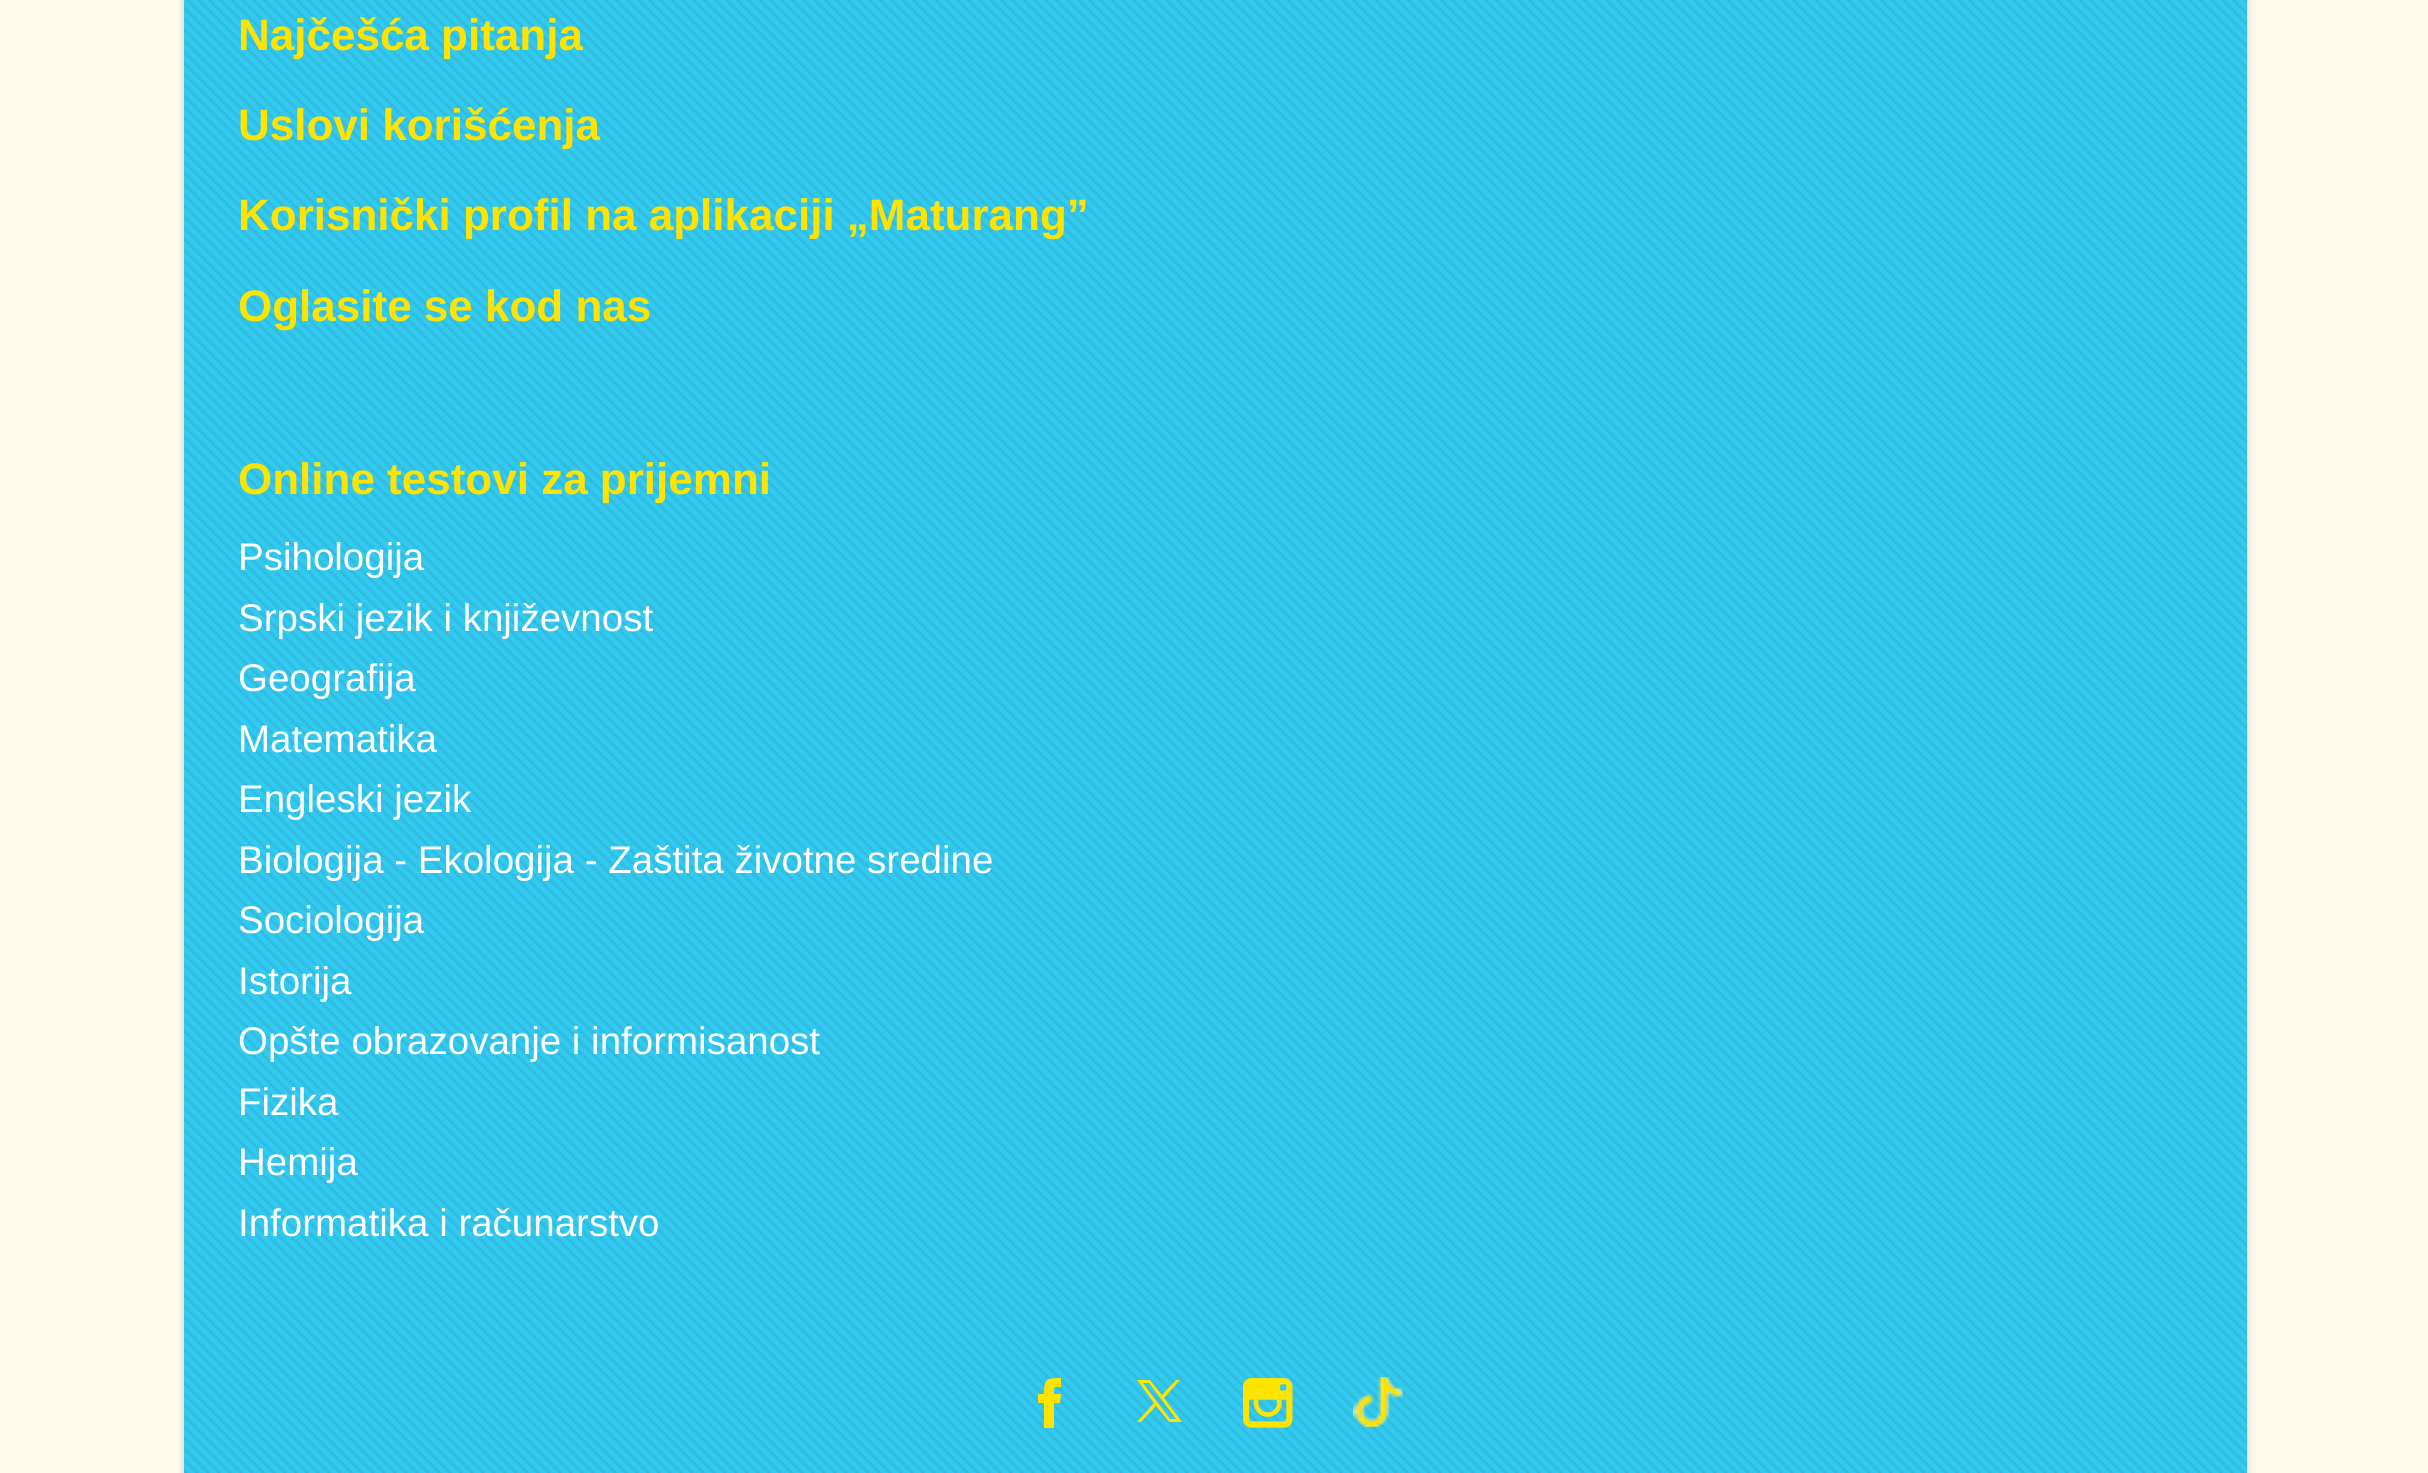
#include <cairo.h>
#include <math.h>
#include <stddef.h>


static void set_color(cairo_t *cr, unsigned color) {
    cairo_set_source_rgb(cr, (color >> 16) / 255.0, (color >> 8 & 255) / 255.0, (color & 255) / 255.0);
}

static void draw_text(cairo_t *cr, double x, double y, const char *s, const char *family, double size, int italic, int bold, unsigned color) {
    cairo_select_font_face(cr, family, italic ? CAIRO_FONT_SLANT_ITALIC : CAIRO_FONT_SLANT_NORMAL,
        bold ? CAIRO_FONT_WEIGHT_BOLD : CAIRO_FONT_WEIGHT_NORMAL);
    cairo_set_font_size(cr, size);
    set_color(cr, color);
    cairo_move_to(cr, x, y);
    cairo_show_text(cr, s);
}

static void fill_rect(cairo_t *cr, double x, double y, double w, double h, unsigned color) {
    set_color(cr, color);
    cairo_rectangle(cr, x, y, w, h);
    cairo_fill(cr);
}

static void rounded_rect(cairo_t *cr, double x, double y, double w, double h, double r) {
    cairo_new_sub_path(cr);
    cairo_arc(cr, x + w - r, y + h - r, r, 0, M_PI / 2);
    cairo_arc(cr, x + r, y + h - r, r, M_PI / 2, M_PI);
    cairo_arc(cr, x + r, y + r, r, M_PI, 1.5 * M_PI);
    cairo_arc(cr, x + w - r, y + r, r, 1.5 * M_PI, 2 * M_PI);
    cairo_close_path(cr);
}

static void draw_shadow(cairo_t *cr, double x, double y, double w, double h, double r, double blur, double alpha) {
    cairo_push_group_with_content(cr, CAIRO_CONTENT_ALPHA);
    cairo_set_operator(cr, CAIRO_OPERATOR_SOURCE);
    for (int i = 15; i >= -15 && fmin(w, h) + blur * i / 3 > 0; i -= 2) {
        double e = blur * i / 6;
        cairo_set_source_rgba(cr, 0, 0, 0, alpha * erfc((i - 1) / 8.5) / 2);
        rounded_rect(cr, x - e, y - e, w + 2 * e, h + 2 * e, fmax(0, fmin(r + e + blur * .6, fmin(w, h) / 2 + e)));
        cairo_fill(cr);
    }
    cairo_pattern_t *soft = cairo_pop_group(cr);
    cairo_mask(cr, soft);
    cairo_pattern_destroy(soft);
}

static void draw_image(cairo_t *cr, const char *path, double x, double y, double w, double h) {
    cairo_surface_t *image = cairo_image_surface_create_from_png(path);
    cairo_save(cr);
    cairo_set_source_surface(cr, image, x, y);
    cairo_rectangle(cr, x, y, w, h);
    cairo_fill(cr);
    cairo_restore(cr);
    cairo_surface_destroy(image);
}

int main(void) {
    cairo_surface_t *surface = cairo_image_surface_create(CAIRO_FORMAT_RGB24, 2428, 1473);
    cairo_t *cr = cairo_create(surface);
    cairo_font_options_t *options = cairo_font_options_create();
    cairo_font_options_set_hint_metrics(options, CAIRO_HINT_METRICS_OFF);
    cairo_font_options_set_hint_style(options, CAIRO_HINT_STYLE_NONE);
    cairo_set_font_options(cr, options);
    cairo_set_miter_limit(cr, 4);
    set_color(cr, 0xFFFBEB);
    cairo_paint(cr);
    set_color(cr, 0xCCCCCC);
    draw_shadow(cr, 184, -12, 2063, 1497, 0, 4, 1);
    fill_rect(cr, 184, 0, 2063, 1473, 0x30CBF2);
    draw_image(cr, "assets/img1.png", 184, 0, 2063, 1473);
    draw_text(cr, 238, 50, "Najčešća pitanja", "Liberation Sans", 44, 0, 1, 0xFFE400);
    draw_text(cr, 238, 140, "Uslovi korišćenja", "Liberation Sans", 44, 0, 1, 0xFFE400);
    draw_text(cr, 238, 230, "Korisnički profil na aplikaciji „Maturang”", "Liberation Sans", 44, 0, 1, 0xFFE400);
    draw_text(cr, 238, 321, "Oglasite se kod nas", "Liberation Sans", 44, 0, 1, 0xFFE400);
    draw_text(cr, 238, 494, "Online testovi za prijemni", "Liberation Sans", 44, 0, 1, 0xFFE400);
    draw_text(cr, 238, 570, "Psihologija", "Liberation Sans", 38.5, 0, 0, 0xFFFFFF);
    draw_text(cr, 238, 631, "Srpski jezik i književnost", "Liberation Sans", 38.5, 0, 0, 0xFFFFFF);
    draw_text(cr, 238, 691, "Geografija", "Liberation Sans", 38.5, 0, 0, 0xFFFFFF);
    draw_text(cr, 238, 752, "Matematika", "Liberation Sans", 38.5, 0, 0, 0xFFFFFF);
    draw_text(cr, 238, 812, "Engleski jezik", "Liberation Sans", 38.5, 0, 0, 0xFFFFFF);
    draw_text(cr, 238, 873, "Biologija - Ekologija - Zaštita životne sredine", "Liberation Sans", 38.5, 0, 0, 0xFFFFFF);
    draw_text(cr, 238, 933, "Sociologija", "Liberation Sans", 38.5, 0, 0, 0xFFFFFF);
    draw_text(cr, 238, 994, "Istorija", "Liberation Sans", 38.5, 0, 0, 0xFFFFFF);
    draw_text(cr, 238, 1054, "Opšte obrazovanje i informisanost", "Liberation Sans", 38.5, 0, 0, 0xFFFFFF);
    draw_text(cr, 238, 1115, "Fizika", "Liberation Sans", 38.5, 0, 0, 0xFFFFFF);
    draw_text(cr, 238, 1175, "Hemija", "Liberation Sans", 38.5, 0, 0, 0xFFFFFF);
    draw_text(cr, 238, 1236, "Informatika i računarstvo", "Liberation Sans", 38.5, 0, 0, 0xFFFFFF);
    set_color(cr, 0xFFE400);
    cairo_new_path(cr);
    cairo_move_to(cr, 1054, 1428);
    cairo_line_to(cr, 1044, 1428);
    cairo_line_to(cr, 1044, 1403);
    cairo_line_to(cr, 1038, 1403);
    cairo_line_to(cr, 1038, 1394);
    cairo_line_to(cr, 1044, 1394);
    cairo_curve_to(cr, 1044, 1379, 1046, 1378, 1061, 1378);
    cairo_line_to(cr, 1061, 1387);
    cairo_curve_to(cr, 1053, 1387, 1054, 1386, 1054, 1394);
    cairo_line_to(cr, 1061, 1394);
    cairo_line_to(cr, 1060, 1403);
    cairo_line_to(cr, 1054, 1403);
    cairo_close_path(cr);
    cairo_fill(cr);
    cairo_new_path(cr);
    cairo_move_to(cr, 1137, 1380);
    cairo_line_to(cr, 1154, 1403);
    cairo_line_to(cr, 1137, 1422);
    cairo_line_to(cr, 1141, 1422);
    cairo_line_to(cr, 1156, 1406);
    cairo_line_to(cr, 1169, 1422);
    cairo_line_to(cr, 1182, 1422);
    cairo_line_to(cr, 1164, 1398);
    cairo_line_to(cr, 1180, 1380);
    cairo_line_to(cr, 1176, 1380);
    cairo_line_to(cr, 1162, 1395);
    cairo_line_to(cr, 1150, 1380);
    cairo_close_path(cr);
    cairo_move_to(cr, 1143, 1383);
    cairo_line_to(cr, 1149, 1383);
    cairo_line_to(cr, 1176, 1419);
    cairo_line_to(cr, 1170, 1419);
    cairo_close_path(cr);
    cairo_fill(cr);
    draw_image(cr, "assets/img2.png", 1243, 1378, 50, 50);
    draw_image(cr, "assets/img3.png", 1353, 1377, 50, 50);
    cairo_surface_write_to_png(surface, "output.png");
    cairo_font_options_destroy(options);
    cairo_destroy(cr);
    cairo_surface_destroy(surface);
    return 0;
}
